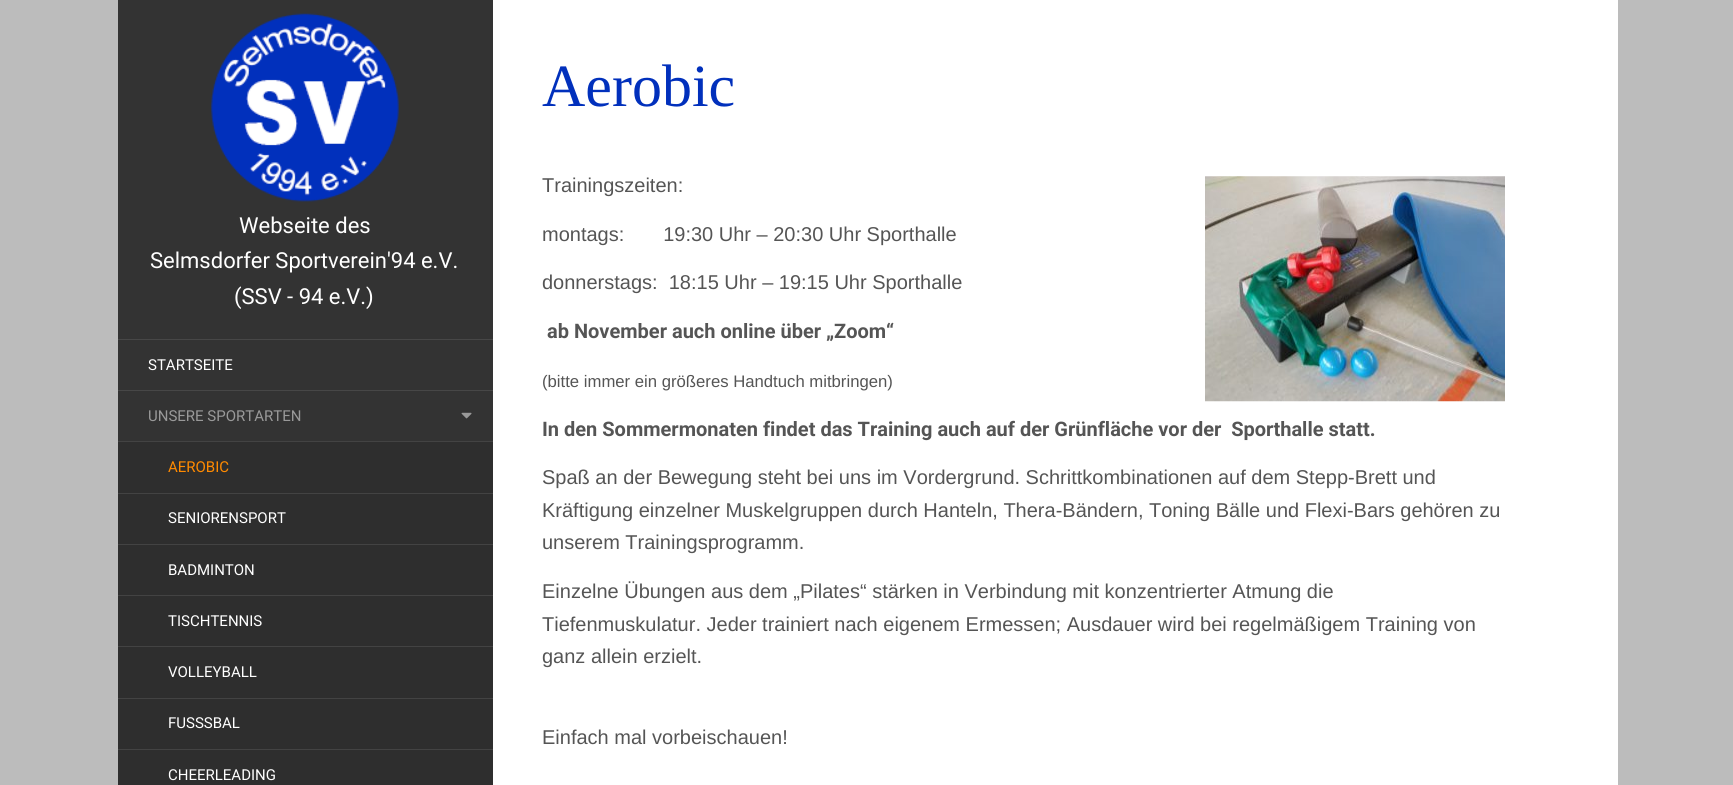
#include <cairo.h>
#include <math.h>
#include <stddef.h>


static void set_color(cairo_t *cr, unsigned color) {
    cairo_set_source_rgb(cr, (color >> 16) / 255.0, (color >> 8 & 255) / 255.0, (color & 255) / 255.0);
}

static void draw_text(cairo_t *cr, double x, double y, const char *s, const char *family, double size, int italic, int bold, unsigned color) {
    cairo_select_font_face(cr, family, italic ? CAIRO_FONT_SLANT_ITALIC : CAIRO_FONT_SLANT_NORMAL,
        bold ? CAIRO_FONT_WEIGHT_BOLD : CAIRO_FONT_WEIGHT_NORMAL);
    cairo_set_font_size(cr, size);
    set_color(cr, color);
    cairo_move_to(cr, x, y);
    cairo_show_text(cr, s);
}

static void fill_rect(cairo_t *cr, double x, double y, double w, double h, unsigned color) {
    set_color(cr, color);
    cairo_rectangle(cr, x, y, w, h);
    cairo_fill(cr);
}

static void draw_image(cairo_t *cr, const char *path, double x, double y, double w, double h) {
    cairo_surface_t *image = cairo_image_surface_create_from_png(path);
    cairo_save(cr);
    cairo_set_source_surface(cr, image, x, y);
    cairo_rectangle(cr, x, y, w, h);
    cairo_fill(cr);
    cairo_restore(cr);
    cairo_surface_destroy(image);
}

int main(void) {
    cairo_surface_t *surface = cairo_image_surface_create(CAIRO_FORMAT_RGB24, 1733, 785);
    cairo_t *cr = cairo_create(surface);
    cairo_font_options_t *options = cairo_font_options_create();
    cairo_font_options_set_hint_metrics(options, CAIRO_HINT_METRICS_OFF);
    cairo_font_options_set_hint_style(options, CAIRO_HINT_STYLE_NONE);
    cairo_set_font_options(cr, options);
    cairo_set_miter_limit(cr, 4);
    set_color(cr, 0xBCBCBC);
    cairo_paint(cr);
    fill_rect(cr, 493, 0, 1125, 785, 0xFFFFFF);
    fill_rect(cr, 118, 0, 375, 441, 0x333333);
    fill_rect(cr, 118, 339, 375, 1, 0x474747);
    draw_image(cr, "assets/img1.png", 211, 13, 188, 189);
    draw_text(cr, 239, 233, "Webseite des", "Roboto", 22, 0, 0, 0xFFFFFF);
    draw_text(cr, 150, 268, "Selmsdorfer Sportverein'94 e.V.", "Roboto", 22, 0, 0, 0xFFFFFF);
    draw_text(cr, 234, 304, "(SSV - 94 e.V.)", "Roboto", 22, 0, 0, 0xFFFFFF);
    fill_rect(cr, 118, 390, 375, 1, 0x474747);
    draw_text(cr, 148, 370, "STARTSEITE", "Roboto", 15, 0, 0, 0xFFFFFF);
    draw_text(cr, 148, 421, "UNSERE SPORTARTEN", "Roboto", 15, 0, 0, 0x999999);
    draw_image(cr, "assets/img2.png", 461, 412, 11, 7);
    fill_rect(cr, 118, 442, 375, 343, 0x2E2E2E);
    fill_rect(cr, 118, 441, 375, 1, 0x434343);
    fill_rect(cr, 118, 493, 375, 1, 0x434343);
    draw_text(cr, 168, 472, "AEROBIC", "Roboto", 15, 0, 0, 0xFF8A00);
    fill_rect(cr, 118, 544, 375, 1, 0x434343);
    draw_text(cr, 168, 523, "SENIORENSPORT", "Roboto", 15, 0, 0, 0xFFFFFF);
    fill_rect(cr, 118, 595, 375, 1, 0x434343);
    draw_text(cr, 168, 575, "BADMINTON", "Roboto", 15, 0, 0, 0xFFFFFF);
    fill_rect(cr, 118, 646, 375, 1, 0x434343);
    draw_text(cr, 168, 626, "TISCHTENNIS", "Roboto", 15, 0, 0, 0xFFFFFF);
    fill_rect(cr, 118, 698, 375, 1, 0x434343);
    draw_text(cr, 168, 677, "VOLLEYBALL", "Roboto", 15, 0, 0, 0xFFFFFF);
    fill_rect(cr, 118, 749, 375, 1, 0x434343);
    draw_text(cr, 168, 728, "FUSSSBAL", "Roboto", 15, 0, 0, 0xFFFFFF);
    draw_text(cr, 168, 780, "CHEERLEADING", "Roboto", 15, 0, 0, 0xFFFFFF);
    draw_text(cr, 542, 106, "Aerobic", "Liberation Serif", 60, 0, 0, 0x0130BC);
    draw_text(cr, 542, 192, "Trainingszeiten:", "Liberation Sans", 20, 0, 0, 0x555555);
    draw_image(cr, "assets/img3.png", 1205, 176, 300, 226);
    draw_text(cr, 542, 241, "montags:       19:30 Uhr – 20:30 Uhr Sporthalle", "Liberation Sans", 20, 0, 0, 0x555555);
    draw_text(cr, 542, 289, "donnerstags:  18:15 Uhr – 19:15 Uhr Sporthalle", "Liberation Sans", 20, 0, 0, 0x555555);
    draw_text(cr, 547, 338, "ab November auch online über „Zoom“", "Roboto", 20, 0, 1, 0x555555);
    draw_text(cr, 542, 387, "(bitte immer ein größeres Handtuch mitbringen)", "Liberation Sans", 16.7, 0, 0, 0x555555);
    draw_text(cr, 542, 436, "In den Sommermonaten findet das Training auch auf der Grünfläche vor der  Sporthalle statt.", "Roboto", 20, 0, 1, 0x555555);
    draw_text(cr, 542, 484, "Spaß an der Bewegung steht bei uns im Vordergrund. Schrittkombinationen auf dem Stepp-Brett und", "Liberation Sans", 20, 0, 0, 0x555555);
    draw_text(cr, 542, 517, "Kräftigung einzelner Muskelgruppen durch Hanteln, Thera-Bändern, Toning Bälle und Flexi-Bars gehören zu", "Liberation Sans", 20, 0, 0, 0x555555);
    draw_text(cr, 542, 549, "unserem Trainingsprogramm.", "Liberation Sans", 20, 0, 0, 0x555555);
    draw_text(cr, 542, 598, "Einzelne Übungen aus dem „Pilates“ stärken in Verbindung mit konzentrierter Atmung die", "Liberation Sans", 20, 0, 0, 0x555555);
    draw_text(cr, 542, 631, "Tiefenmuskulatur. Jeder trainiert nach eigenem Ermessen; Ausdauer wird bei regelmäßigem Training von", "Liberation Sans", 20, 0, 0, 0x555555);
    draw_text(cr, 542, 663, "ganz allein erzielt.", "Liberation Sans", 20, 0, 0, 0x555555);
    draw_text(cr, 542, 744, "Einfach mal vorbeischauen!", "Liberation Sans", 20, 0, 0, 0x555555);
    cairo_surface_write_to_png(surface, "output.png");
    cairo_font_options_destroy(options);
    cairo_destroy(cr);
    cairo_surface_destroy(surface);
    return 0;
}
